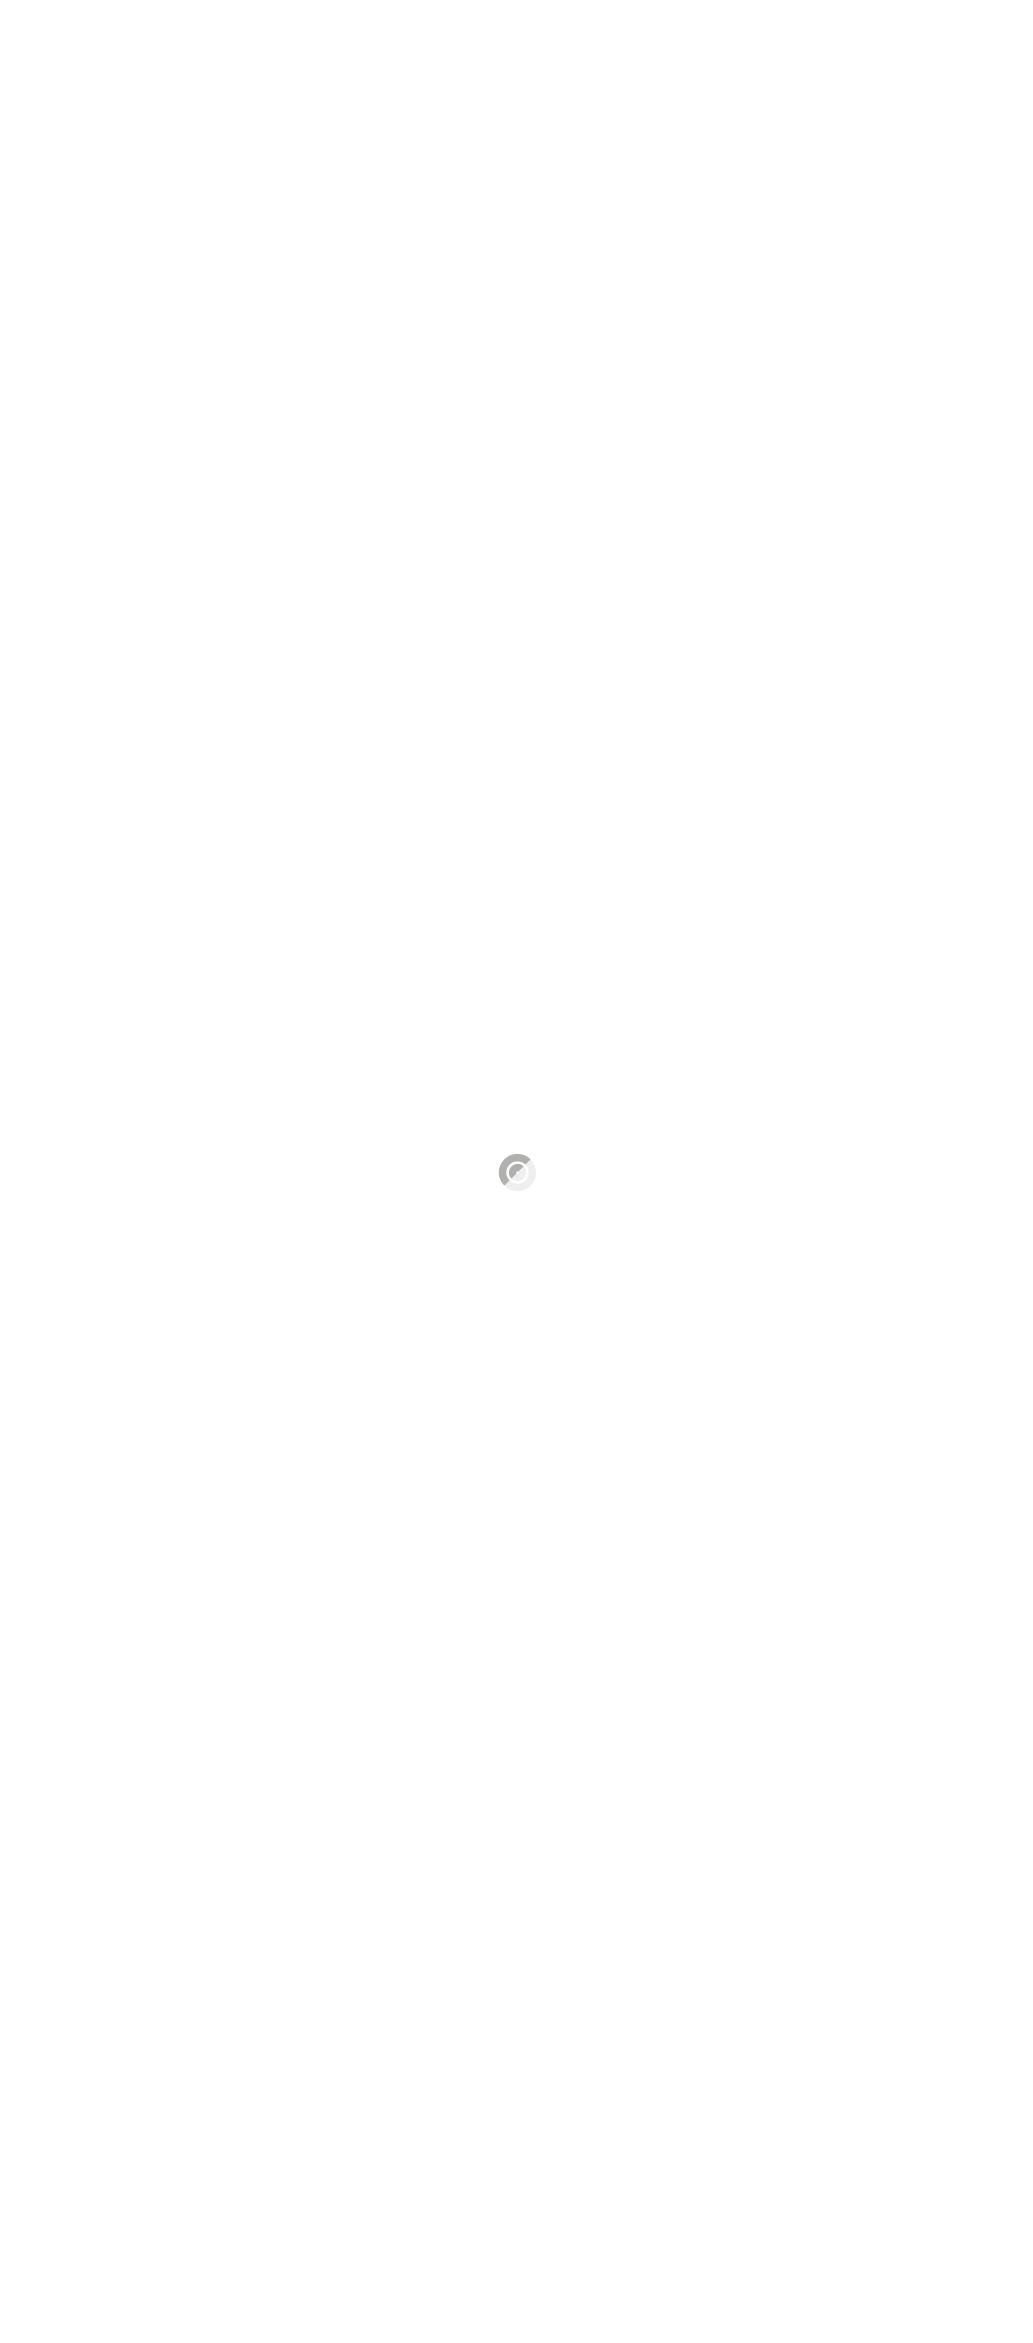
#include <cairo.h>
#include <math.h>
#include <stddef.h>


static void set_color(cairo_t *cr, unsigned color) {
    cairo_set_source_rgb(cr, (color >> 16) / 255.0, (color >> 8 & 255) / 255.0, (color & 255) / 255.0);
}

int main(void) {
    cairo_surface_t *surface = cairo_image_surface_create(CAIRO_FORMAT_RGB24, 1033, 2343);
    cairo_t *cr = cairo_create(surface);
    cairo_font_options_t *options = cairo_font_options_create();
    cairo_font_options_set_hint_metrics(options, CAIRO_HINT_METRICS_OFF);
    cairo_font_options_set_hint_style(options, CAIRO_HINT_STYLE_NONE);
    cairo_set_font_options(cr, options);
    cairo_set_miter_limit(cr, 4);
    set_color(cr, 0xFFFFFF);
    cairo_paint(cr);
    cairo_new_path(cr);
    cairo_move_to(cr, 521, 1169);
    cairo_curve_to(cr, 525.5, 1173.5, 518.5, 1180.5, 514, 1176);
    set_color(cr, 0xEFEFEF);
    cairo_set_line_width(cr, 7.5);
    cairo_stroke(cr);
    cairo_new_path(cr);
    cairo_move_to(cr, 514, 1176);
    cairo_curve_to(cr, 509.5, 1171.5, 516.5, 1164.5, 521, 1169);
    set_color(cr, 0xB0B0AF);
    cairo_stroke(cr);
    cairo_new_path(cr);
    cairo_move_to(cr, 528, 1162);
    cairo_curve_to(cr, 530, 1164, 531.5, 1166.5, 532, 1169.5);
    cairo_curve_to(cr, 535, 1184, 517.5, 1193.5, 507, 1183);
    set_color(cr, 0xEFEFEF);
    cairo_stroke(cr);
    cairo_new_path(cr);
    cairo_move_to(cr, 507, 1183);
    cairo_curve_to(cr, 496.5, 1172.5, 506, 1155, 520.5, 1158);
    cairo_curve_to(cr, 523.5, 1158.5, 526, 1160, 528, 1162);
    set_color(cr, 0xB0B0AF);
    cairo_stroke(cr);
    cairo_surface_write_to_png(surface, "output.png");
    cairo_font_options_destroy(options);
    cairo_destroy(cr);
    cairo_surface_destroy(surface);
    return 0;
}
